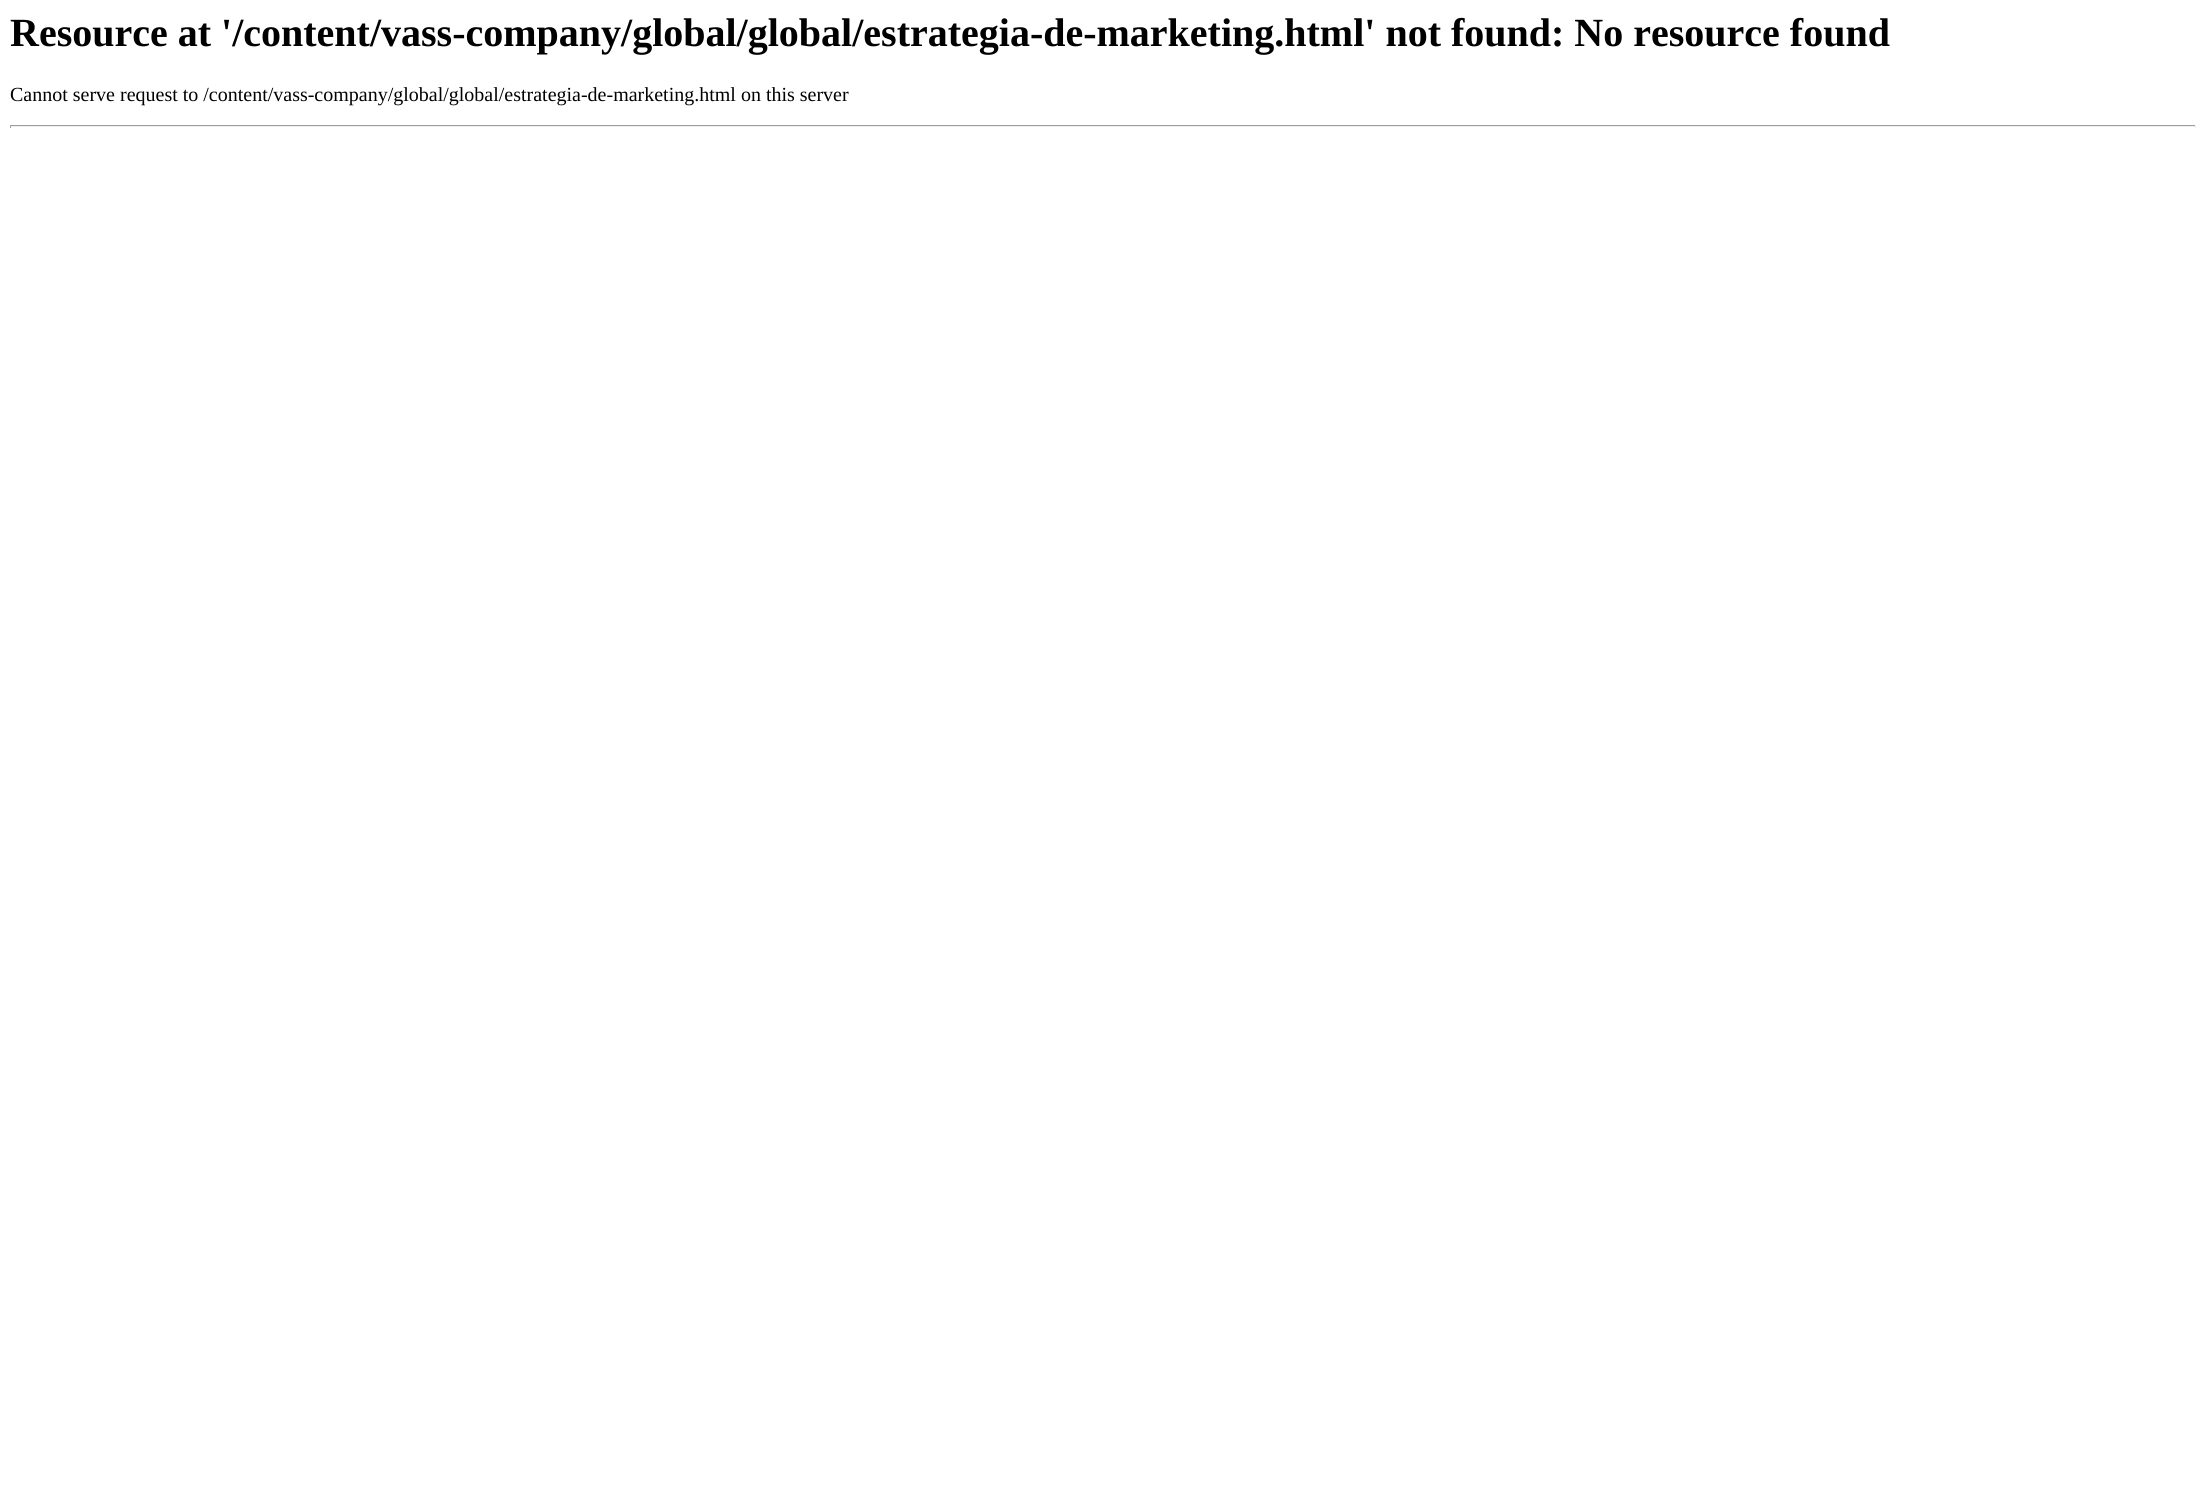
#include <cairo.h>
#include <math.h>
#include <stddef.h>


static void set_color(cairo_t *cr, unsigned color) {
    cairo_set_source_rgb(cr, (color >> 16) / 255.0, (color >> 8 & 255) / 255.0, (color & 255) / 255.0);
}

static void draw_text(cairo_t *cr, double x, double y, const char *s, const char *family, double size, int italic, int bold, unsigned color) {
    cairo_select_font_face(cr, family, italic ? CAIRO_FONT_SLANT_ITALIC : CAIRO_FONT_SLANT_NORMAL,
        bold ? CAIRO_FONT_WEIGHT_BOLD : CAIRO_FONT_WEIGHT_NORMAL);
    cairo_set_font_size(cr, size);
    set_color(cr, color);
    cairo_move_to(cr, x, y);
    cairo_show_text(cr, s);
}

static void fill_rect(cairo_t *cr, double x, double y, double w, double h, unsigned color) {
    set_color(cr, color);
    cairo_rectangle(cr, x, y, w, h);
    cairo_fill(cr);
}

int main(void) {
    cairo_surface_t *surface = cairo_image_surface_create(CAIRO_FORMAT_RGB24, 2206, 1508);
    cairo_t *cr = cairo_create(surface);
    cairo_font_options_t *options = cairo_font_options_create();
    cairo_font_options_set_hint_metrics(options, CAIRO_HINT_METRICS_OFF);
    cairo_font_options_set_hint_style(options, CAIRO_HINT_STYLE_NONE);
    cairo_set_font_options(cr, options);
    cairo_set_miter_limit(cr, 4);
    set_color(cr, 0xFFFFFF);
    cairo_paint(cr);
    draw_text(cr, 10, 46, "Resource at '/content/vass-company/global/global/estrategia-de-marketing.html' not found: No resource found", "Liberation Serif", 40, 0, 1, 0x000000);
    draw_text(cr, 10, 101, "Cannot serve request to /content/vass-company/global/global/estrategia-de-marketing.html on this server", "Liberation Serif", 20, 0, 0, 0x000000);
    fill_rect(cr, 10, 125, 2186, 1, 0x9F9F9F);
    fill_rect(cr, 2195, 125, 1, 3, 0xEEEEEE);
    fill_rect(cr, 10, 126, 2186, 1, 0xEEEEEE);
    fill_rect(cr, 10, 125, 1, 3, 0x9F9F9F);
    cairo_surface_write_to_png(surface, "output.png");
    cairo_font_options_destroy(options);
    cairo_destroy(cr);
    cairo_surface_destroy(surface);
    return 0;
}
